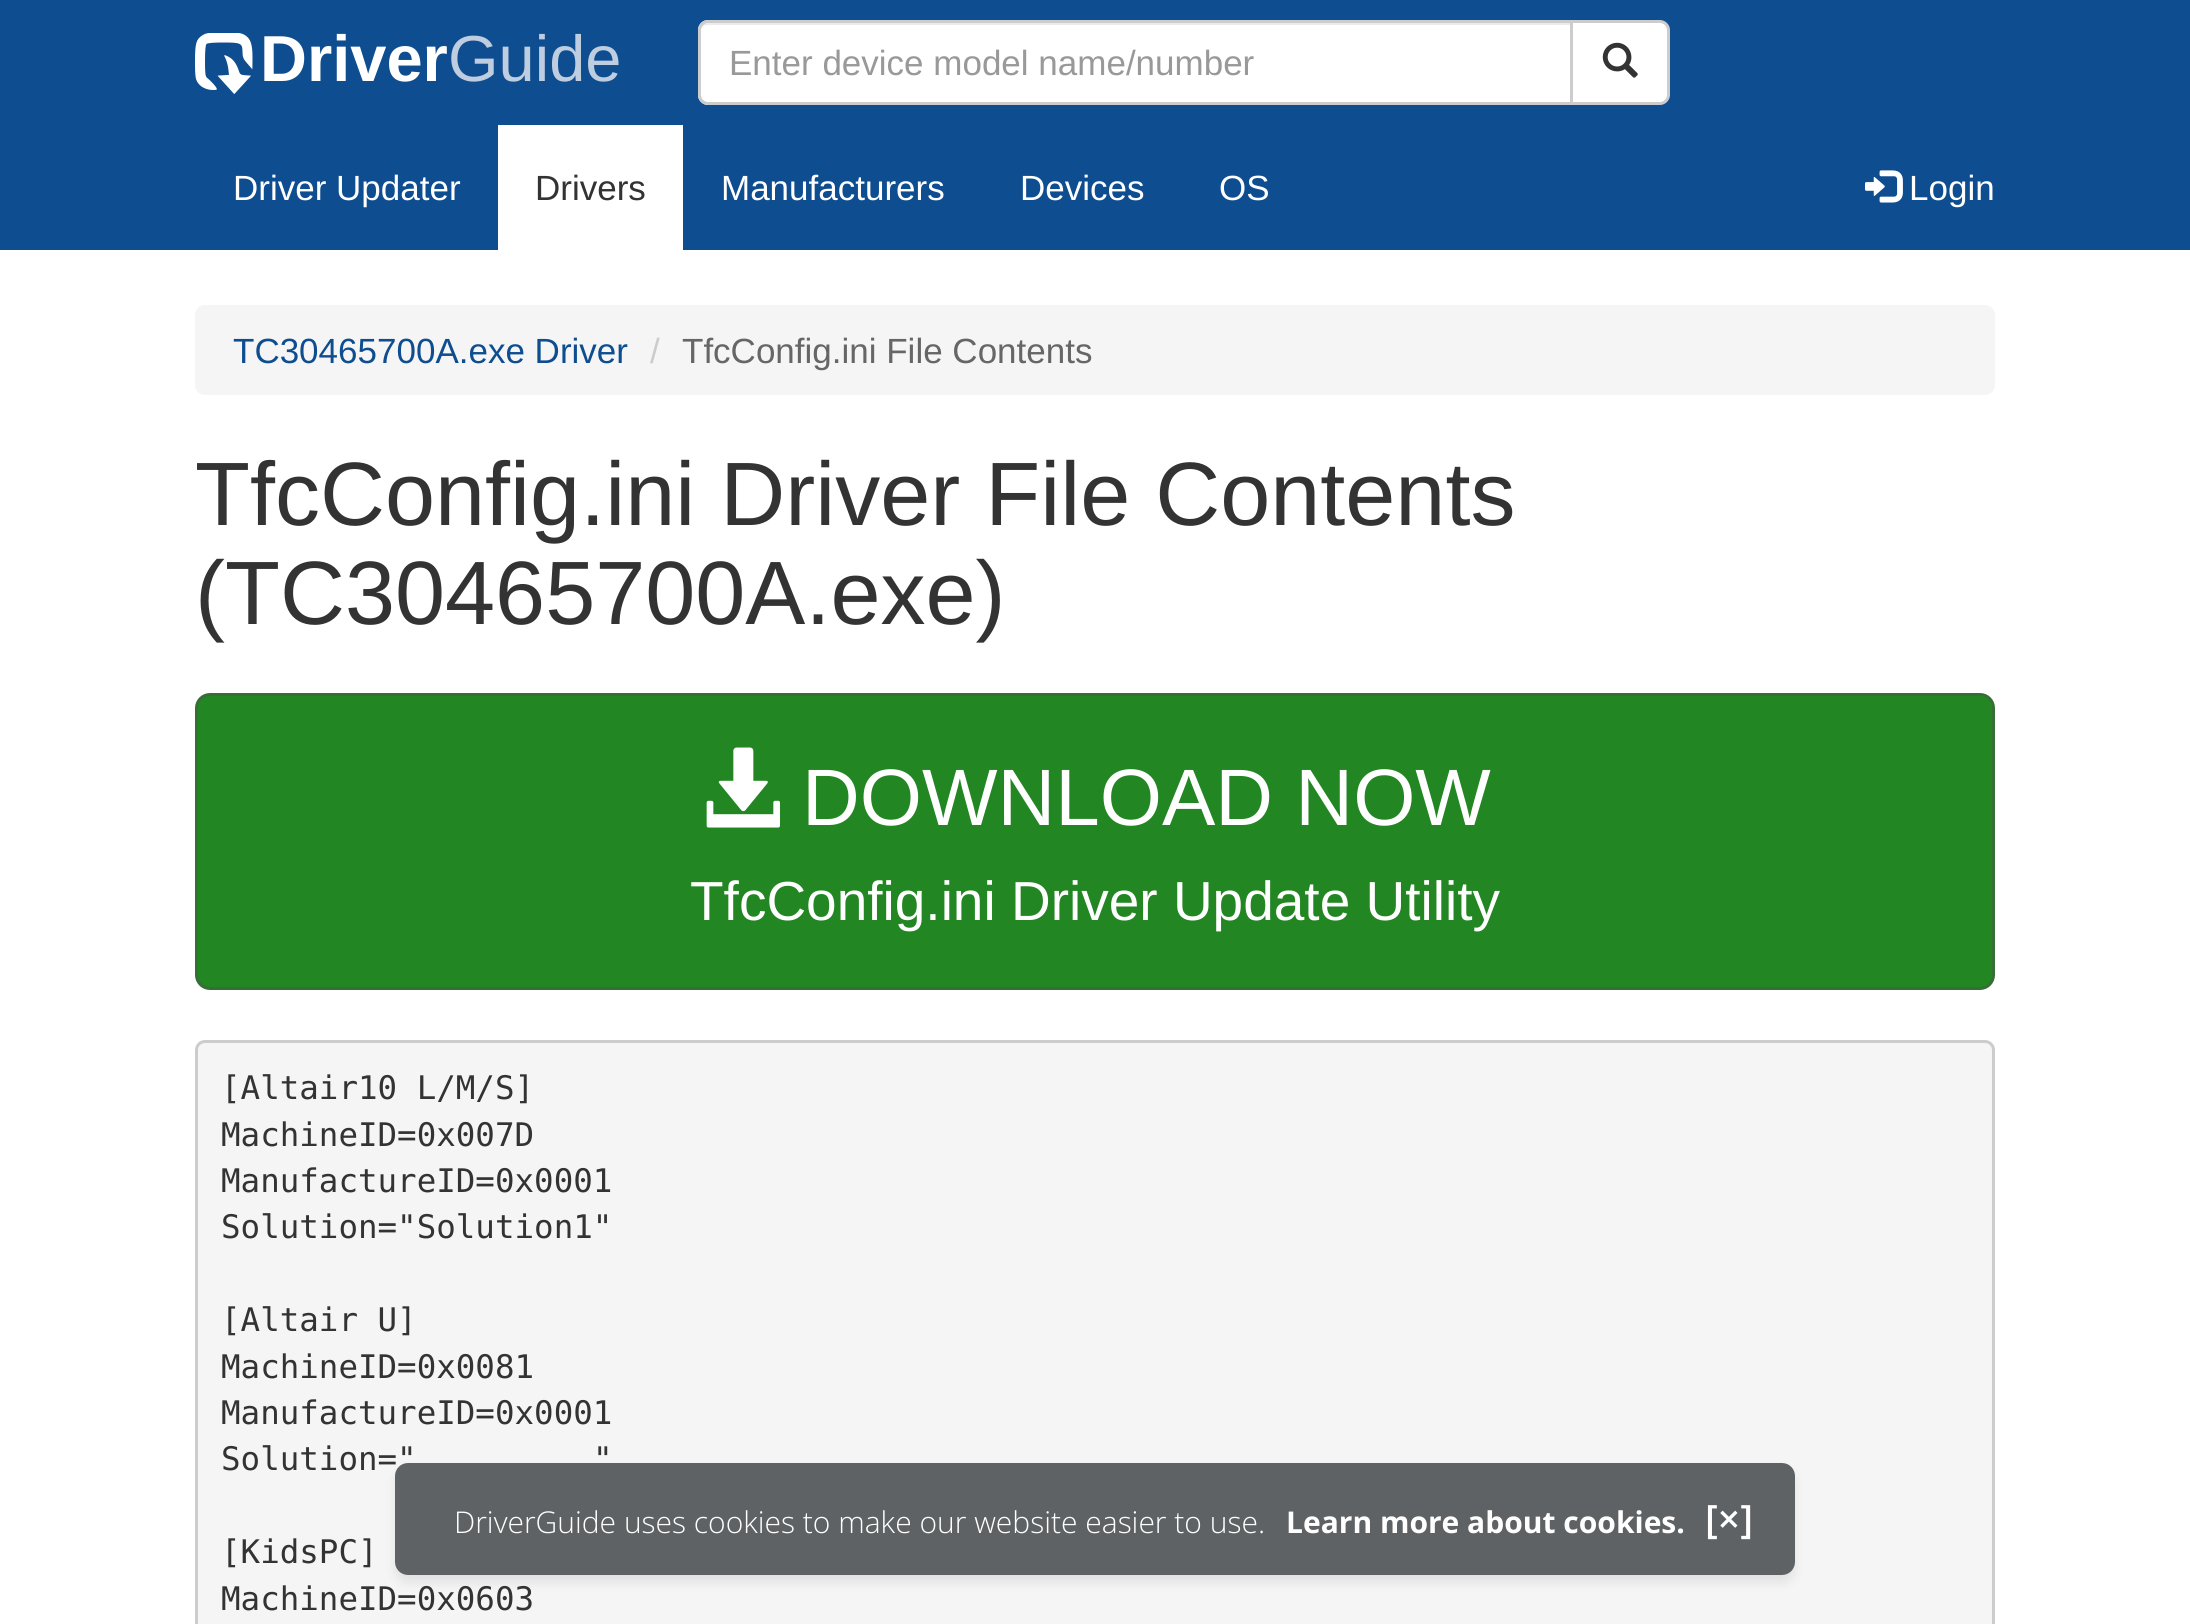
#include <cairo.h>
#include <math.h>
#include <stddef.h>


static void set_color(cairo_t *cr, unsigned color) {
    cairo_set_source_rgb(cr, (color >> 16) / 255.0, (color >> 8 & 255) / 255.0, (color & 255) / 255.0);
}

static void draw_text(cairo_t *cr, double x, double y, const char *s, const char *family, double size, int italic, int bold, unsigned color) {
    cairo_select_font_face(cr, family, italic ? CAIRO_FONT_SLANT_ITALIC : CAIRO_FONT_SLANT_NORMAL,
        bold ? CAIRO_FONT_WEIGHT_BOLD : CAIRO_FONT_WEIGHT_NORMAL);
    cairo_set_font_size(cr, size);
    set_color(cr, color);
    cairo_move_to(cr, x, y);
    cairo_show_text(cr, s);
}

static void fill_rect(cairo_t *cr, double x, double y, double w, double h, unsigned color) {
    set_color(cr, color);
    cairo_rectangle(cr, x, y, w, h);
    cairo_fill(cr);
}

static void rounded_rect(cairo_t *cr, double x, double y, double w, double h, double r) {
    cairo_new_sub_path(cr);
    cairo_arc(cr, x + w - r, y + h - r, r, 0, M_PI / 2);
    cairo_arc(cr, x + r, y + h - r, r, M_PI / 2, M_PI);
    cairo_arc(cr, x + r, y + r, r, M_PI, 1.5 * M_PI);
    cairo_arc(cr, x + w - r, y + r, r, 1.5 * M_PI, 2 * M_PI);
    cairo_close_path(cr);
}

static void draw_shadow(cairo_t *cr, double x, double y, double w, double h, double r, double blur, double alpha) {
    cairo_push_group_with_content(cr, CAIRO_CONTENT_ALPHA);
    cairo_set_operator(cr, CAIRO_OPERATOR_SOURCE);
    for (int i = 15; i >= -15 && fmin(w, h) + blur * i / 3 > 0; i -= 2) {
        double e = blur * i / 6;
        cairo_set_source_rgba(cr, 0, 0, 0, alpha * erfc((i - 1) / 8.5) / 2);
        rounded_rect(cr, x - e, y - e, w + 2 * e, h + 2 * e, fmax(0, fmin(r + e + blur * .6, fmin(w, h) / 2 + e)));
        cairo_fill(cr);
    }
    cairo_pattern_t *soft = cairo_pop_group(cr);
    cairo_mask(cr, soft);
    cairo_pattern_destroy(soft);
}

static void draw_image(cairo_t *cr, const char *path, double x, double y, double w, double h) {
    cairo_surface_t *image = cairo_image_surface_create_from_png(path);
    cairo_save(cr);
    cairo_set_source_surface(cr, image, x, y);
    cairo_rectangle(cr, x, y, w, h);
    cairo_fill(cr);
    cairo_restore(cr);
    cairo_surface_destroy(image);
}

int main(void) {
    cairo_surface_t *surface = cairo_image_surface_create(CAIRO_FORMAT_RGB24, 2190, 1624);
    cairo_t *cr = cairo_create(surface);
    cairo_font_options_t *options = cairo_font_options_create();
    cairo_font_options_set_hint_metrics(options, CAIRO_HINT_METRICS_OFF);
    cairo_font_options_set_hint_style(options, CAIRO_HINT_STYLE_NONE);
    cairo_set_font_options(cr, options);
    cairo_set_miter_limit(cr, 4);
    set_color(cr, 0xFFFFFF);
    cairo_paint(cr);
    fill_rect(cr, 0, 0, 2190, 250, 0x0E4D90);
    draw_image(cr, "assets/img1.png", 195, 33, 58, 61);
    draw_text(cr, 260, 81, "Driver", "Liberation Sans", 65, 0, 1, 0xFFFFFF);
    draw_text(cr, 448, 81, "Guide", "Liberation Sans", 65, 0, 0, 0xBECDDF);
    set_color(cr, 0xFFFFFF);
    cairo_new_path(cr);
    cairo_move_to(cr, 708, 20);
    cairo_line_to(cr, 1573, 20);
    cairo_line_to(cr, 1573, 105);
    cairo_line_to(cr, 708, 105);
    cairo_curve_to(cr, 702.5, 105, 698, 100.5, 698, 95);
    cairo_line_to(cr, 698, 30);
    cairo_curve_to(cr, 698, 24.5, 702.5, 20, 708, 20);
    cairo_close_path(cr);
    cairo_fill(cr);
    set_color(cr, 0xECECEC);
    cairo_new_path(cr);
    cairo_move_to(cr, 708, 25);
    cairo_line_to(cr, 1570, 25);
    cairo_line_to(cr, 1570, 23);
    cairo_line_to(cr, 708, 23);
    cairo_curve_to(cr, 703, 23, 700, 27, 700, 32);
    cairo_curve_to(cr, 700, 28, 703, 25, 708, 25);
    cairo_close_path(cr);
    cairo_fill(cr);
    cairo_new_path(cr);
    cairo_move_to(cr, 708, 21.5);
    cairo_line_to(cr, 1571.5, 21.5);
    cairo_line_to(cr, 1571.5, 103.5);
    cairo_line_to(cr, 708, 103.5);
    cairo_curve_to(cr, 703.5, 103.5, 699.5, 99.5, 699.5, 95);
    cairo_line_to(cr, 699.5, 30);
    cairo_curve_to(cr, 699.5, 25.5, 703.5, 21.5, 708, 21.5);
    cairo_close_path(cr);
    set_color(cr, 0xCCCCCC);
    cairo_set_line_width(cr, 3);
    cairo_stroke(cr);
    draw_text(cr, 729, 75, "Enter device model name/number", "Liberation Sans", 35, 0, 0, 0x999999);
    set_color(cr, 0xFFFFFF);
    cairo_new_path(cr);
    cairo_move_to(cr, 1571.5, 21.5);
    cairo_line_to(cr, 1660, 21.5);
    cairo_curve_to(cr, 1664.5, 21.5, 1668.5, 25.5, 1668.5, 30);
    cairo_line_to(cr, 1668.5, 95);
    cairo_curve_to(cr, 1668.5, 99.5, 1664.5, 103.5, 1660, 103.5);
    cairo_line_to(cr, 1571.5, 103.5);
    cairo_close_path(cr);
    cairo_fill_preserve(cr);
    set_color(cr, 0xCCCCCC);
    cairo_stroke(cr);
    draw_image(cr, "assets/img2.png", 1602, 42, 36, 36);
    draw_text(cr, 233, 200, "Driver Updater", "Liberation Sans", 35, 0, 0, 0xFFFFFF);
    fill_rect(cr, 498, 125, 185, 125, 0xFFFFFF);
    draw_text(cr, 535, 200, "Drivers", "Liberation Sans", 35, 0, 0, 0x333333);
    draw_text(cr, 721, 200, "Manufacturers", "Liberation Sans", 35, 0, 0, 0xFFFFFF);
    draw_text(cr, 1020, 200, "Devices", "Liberation Sans", 35, 0, 0, 0xFFFFFF);
    draw_text(cr, 1219, 200, "OS", "Liberation Sans", 35, 0, 0, 0xFFFFFF);
    draw_image(cr, "assets/img3.png", 1865, 170, 38, 33);
    draw_text(cr, 1909, 200, "Login", "Liberation Sans", 35, 0, 0, 0xFFFFFF);
    set_color(cr, 0xF5F5F5);
    rounded_rect(cr, 195, 305, 1800, 90, 10);
    cairo_fill(cr);
    draw_text(cr, 233, 363, "TC30465700A.exe Driver", "Liberation Sans", 35, 0, 0, 0x0E4D90);
    draw_text(cr, 650, 363, "/", "Liberation Sans", 35, 0, 0, 0xCCCCCC);
    draw_text(cr, 682, 363, "TfcConfig.ini File Contents", "Liberation Sans", 35, 0, 0, 0x666666);
    draw_text(cr, 195, 525, "TfcConfig.ini Driver File Contents", "Liberation Sans", 90, 0, 0, 0x333333);
    draw_text(cr, 195, 624, "(TC30465700A.exe)", "Liberation Sans", 90, 0, 0, 0x333333);
    set_color(cr, 0x228622);
    rounded_rect(cr, 196.5, 694.5, 1797, 294, 13.5);
    cairo_fill_preserve(cr);
    set_color(cr, 0x376D37);
    cairo_stroke(cr);
    draw_image(cr, "assets/img4.png", 706, 747, 74, 81);
    draw_text(cr, 802, 825, "DOWNLOAD NOW", "Liberation Sans", 80, 0, 0, 0xFFFFFF);
    draw_text(cr, 690, 920, "TfcConfig.ini Driver Update Utility", "Liberation Sans", 55, 0, 0, 0xFFFFFF);
    set_color(cr, 0xF5F5F5);
    rounded_rect(cr, 196.5, 1041.5, 1797, 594, 8.5);
    cairo_fill_preserve(cr);
    set_color(cr, 0xCCCCCC);
    cairo_stroke(cr);
    draw_text(cr, 221, 1099, "[Altair10 L/M/S]", "DejaVu Sans Mono", 32.5, 0, 0, 0x333333);
    draw_text(cr, 221, 1146, "MachineID=0x007D", "DejaVu Sans Mono", 32.5, 0, 0, 0x333333);
    draw_text(cr, 221, 1192, "ManufactureID=0x0001", "DejaVu Sans Mono", 32.5, 0, 0, 0x333333);
    draw_text(cr, 221, 1238, "Solution=\"Solution1\"", "DejaVu Sans Mono", 32.5, 0, 0, 0x333333);
    draw_text(cr, 221, 1331, "[Altair U]", "DejaVu Sans Mono", 32.5, 0, 0, 0x333333);
    draw_text(cr, 221, 1378, "MachineID=0x0081", "DejaVu Sans Mono", 32.5, 0, 0, 0x333333);
    draw_text(cr, 221, 1424, "ManufactureID=0x0001", "DejaVu Sans Mono", 32.5, 0, 0, 0x333333);
    draw_text(cr, 221, 1470, "Solution=\"", "DejaVu Sans Mono", 32.5, 0, 0, 0x333333);
    draw_text(cr, 593, 1470, "\"", "DejaVu Sans Mono", 32.5, 0, 0, 0x333333);
    draw_text(cr, 221, 1563, "[KidsPC]", "DejaVu Sans Mono", 32.5, 0, 0, 0x333333);
    draw_text(cr, 221, 1610, "MachineID=0x0603", "DejaVu Sans Mono", 32.5, 0, 0, 0x333333);
    cairo_save(cr);
    cairo_set_fill_rule(cr, CAIRO_FILL_RULE_EVEN_ODD);
    cairo_new_path(cr);
    cairo_move_to(cr, 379, 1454);
    cairo_line_to(cr, 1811, 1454);
    cairo_line_to(cr, 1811, 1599);
    cairo_line_to(cr, 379, 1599);
    cairo_close_path(cr);
    cairo_move_to(cr, 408, 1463);
    cairo_line_to(cr, 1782, 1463);
    cairo_curve_to(cr, 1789, 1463, 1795, 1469, 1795, 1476);
    cairo_line_to(cr, 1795, 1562);
    cairo_curve_to(cr, 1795, 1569, 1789, 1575, 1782, 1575);
    cairo_line_to(cr, 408, 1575);
    cairo_curve_to(cr, 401, 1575, 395, 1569, 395, 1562);
    cairo_line_to(cr, 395, 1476);
    cairo_curve_to(cr, 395, 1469, 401, 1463, 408, 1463);
    cairo_close_path(cr);
    cairo_clip(cr);
    set_color(cr, 0x2E3234);
    draw_shadow(cr, 395, 1470, 1400, 113, 13, 5, 0.1);
    cairo_restore(cr);
    cairo_set_source_rgba(cr, 0.18, 0.196, 0.204, 0.75);
    rounded_rect(cr, 395, 1463, 1400, 112, 13);
    cairo_fill(cr);
    draw_text(cr, 454, 1533, "DriverGuide uses cookies to make our website easier to use.", "Open Sans Light", 30, 0, 0, 0xFFFFFF);
    draw_text(cr, 1286, 1533, "Learn more about cookies.", "Open Sans", 30, 0, 1, 0xFFFFFF);
    draw_text(cr, 1705, 1533, "[×]", "Open Sans SemiBold", 39, 0, 0, 0xFFFFFF);
    cairo_surface_write_to_png(surface, "output.png");
    cairo_font_options_destroy(options);
    cairo_destroy(cr);
    cairo_surface_destroy(surface);
    return 0;
}
